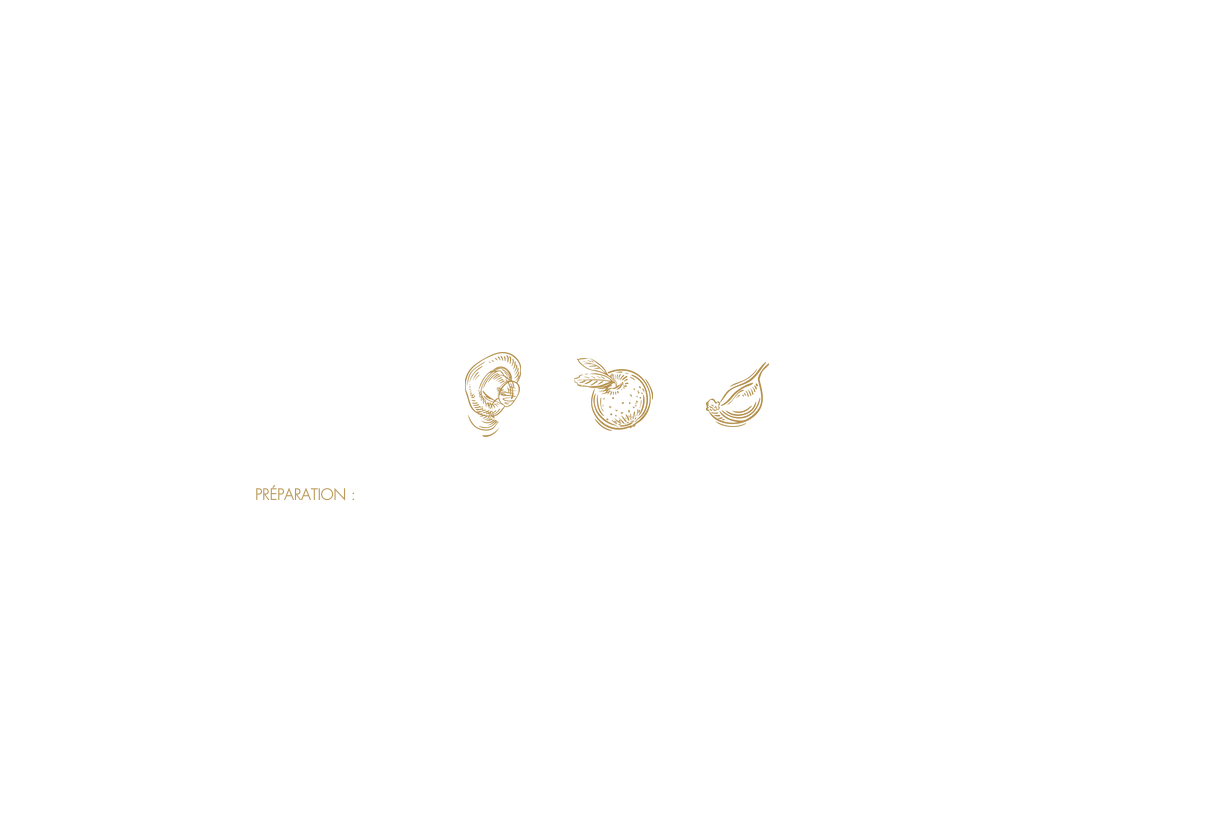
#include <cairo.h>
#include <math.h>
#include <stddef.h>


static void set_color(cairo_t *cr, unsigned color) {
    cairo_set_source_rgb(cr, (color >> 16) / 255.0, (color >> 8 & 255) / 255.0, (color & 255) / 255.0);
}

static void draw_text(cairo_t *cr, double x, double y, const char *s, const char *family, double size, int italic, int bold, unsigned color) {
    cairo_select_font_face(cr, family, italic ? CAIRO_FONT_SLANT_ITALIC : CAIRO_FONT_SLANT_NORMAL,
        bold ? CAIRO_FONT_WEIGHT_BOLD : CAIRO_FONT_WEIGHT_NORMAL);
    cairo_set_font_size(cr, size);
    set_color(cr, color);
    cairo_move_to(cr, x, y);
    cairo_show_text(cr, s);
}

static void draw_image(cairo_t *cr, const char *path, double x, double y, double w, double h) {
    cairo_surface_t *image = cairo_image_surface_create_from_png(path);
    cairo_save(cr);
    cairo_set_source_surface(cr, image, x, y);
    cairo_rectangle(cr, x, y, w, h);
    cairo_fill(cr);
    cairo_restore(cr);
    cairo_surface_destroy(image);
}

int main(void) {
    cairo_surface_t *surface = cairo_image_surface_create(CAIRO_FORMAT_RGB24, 1217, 828);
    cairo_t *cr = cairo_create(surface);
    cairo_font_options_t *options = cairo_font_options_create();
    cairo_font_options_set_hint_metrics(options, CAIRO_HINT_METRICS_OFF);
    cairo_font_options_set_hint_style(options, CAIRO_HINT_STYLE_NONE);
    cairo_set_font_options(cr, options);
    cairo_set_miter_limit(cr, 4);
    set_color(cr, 0xFFFFFF);
    cairo_paint(cr);
    draw_image(cr, "assets/img1.png", 465, 352, 56, 85);
    draw_image(cr, "assets/img2.png", 574, 358, 79, 73);
    draw_image(cr, "assets/img3.png", 706, 362, 63, 65);
    draw_text(cr, 255, 500, "PRÉPARATION :", "futura", 15, 0, 1, 0xBC9B5D);
    cairo_surface_write_to_png(surface, "output.png");
    cairo_font_options_destroy(options);
    cairo_destroy(cr);
    cairo_surface_destroy(surface);
    return 0;
}
